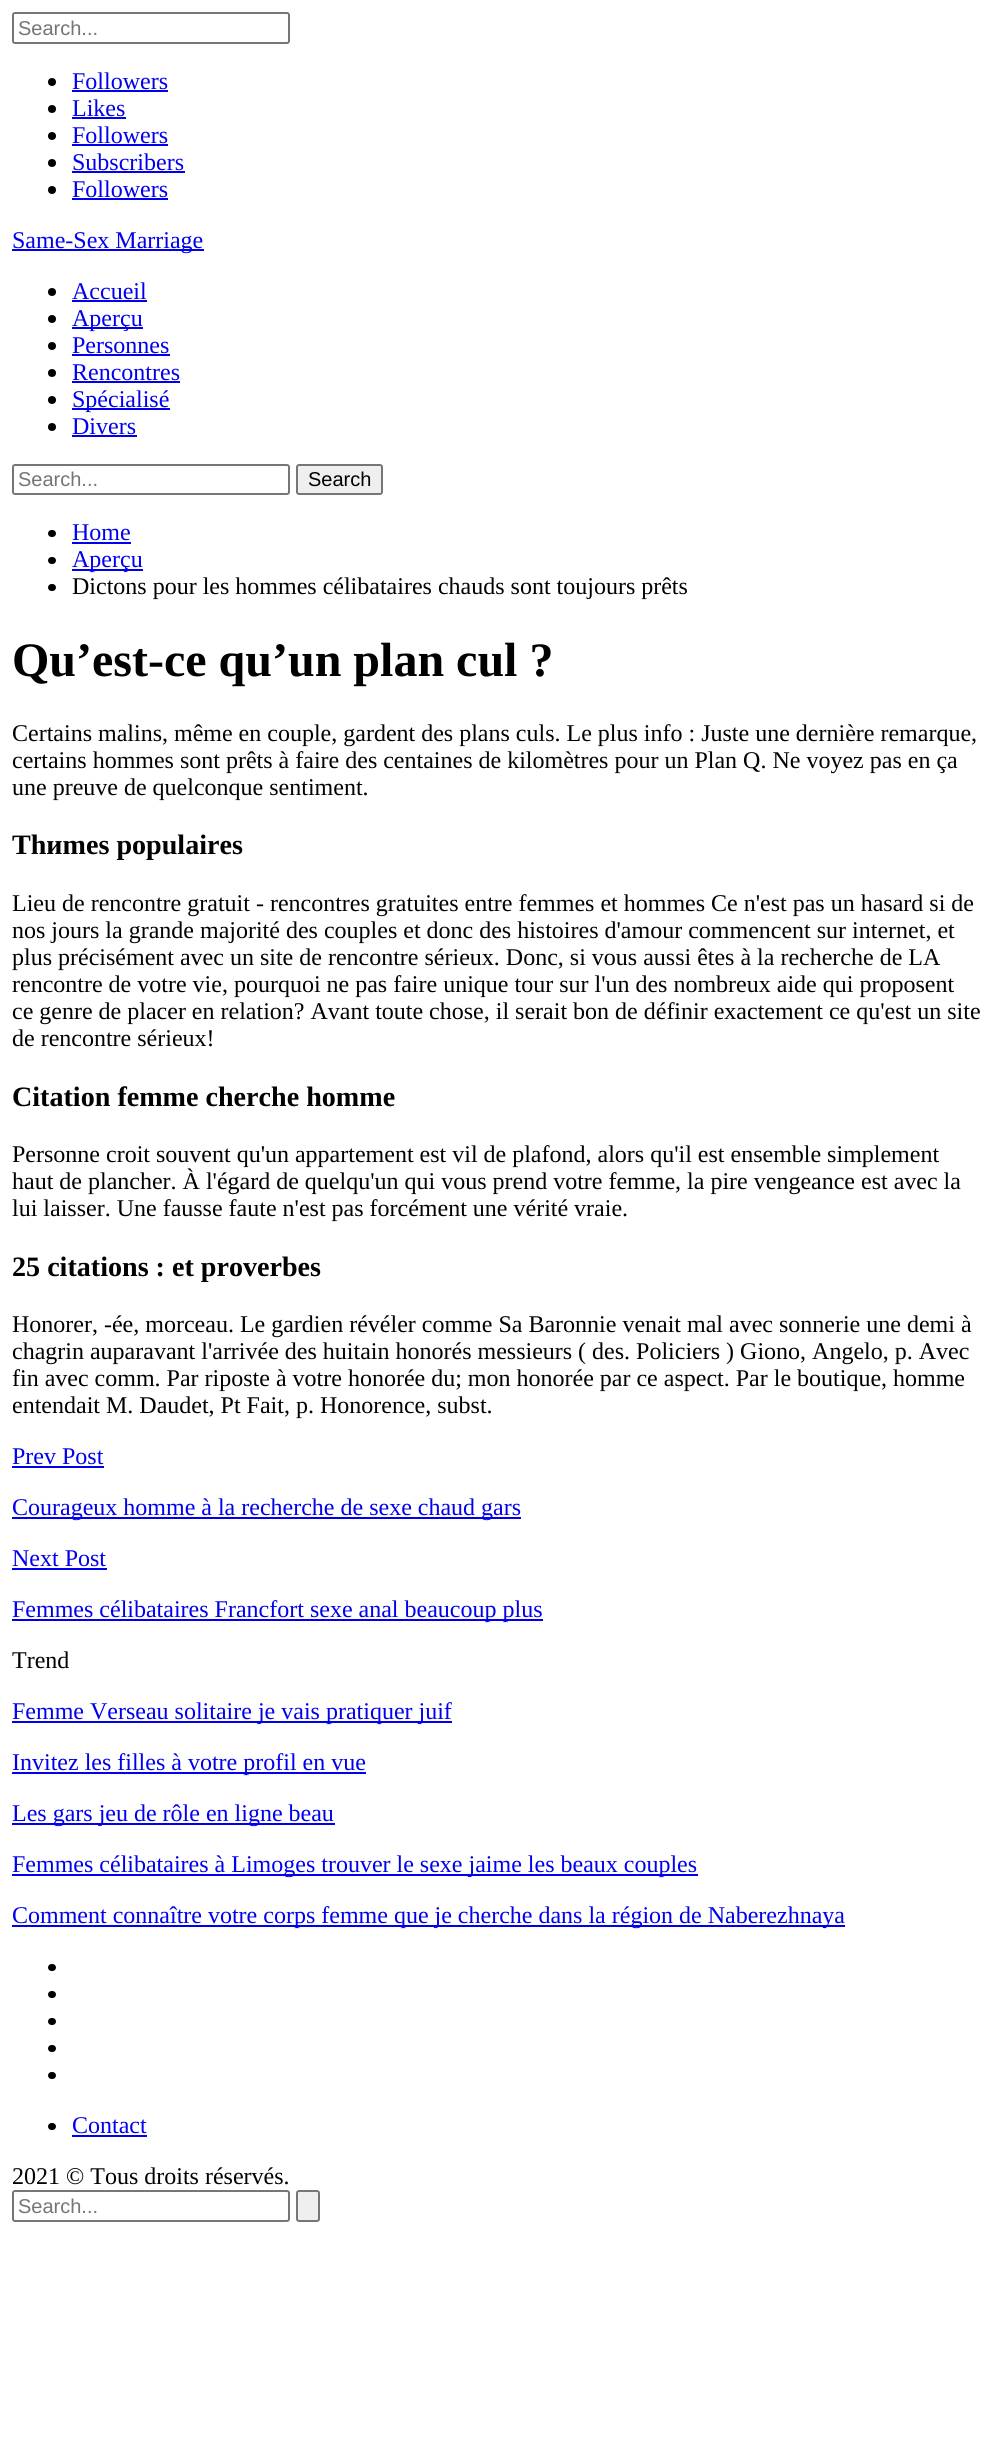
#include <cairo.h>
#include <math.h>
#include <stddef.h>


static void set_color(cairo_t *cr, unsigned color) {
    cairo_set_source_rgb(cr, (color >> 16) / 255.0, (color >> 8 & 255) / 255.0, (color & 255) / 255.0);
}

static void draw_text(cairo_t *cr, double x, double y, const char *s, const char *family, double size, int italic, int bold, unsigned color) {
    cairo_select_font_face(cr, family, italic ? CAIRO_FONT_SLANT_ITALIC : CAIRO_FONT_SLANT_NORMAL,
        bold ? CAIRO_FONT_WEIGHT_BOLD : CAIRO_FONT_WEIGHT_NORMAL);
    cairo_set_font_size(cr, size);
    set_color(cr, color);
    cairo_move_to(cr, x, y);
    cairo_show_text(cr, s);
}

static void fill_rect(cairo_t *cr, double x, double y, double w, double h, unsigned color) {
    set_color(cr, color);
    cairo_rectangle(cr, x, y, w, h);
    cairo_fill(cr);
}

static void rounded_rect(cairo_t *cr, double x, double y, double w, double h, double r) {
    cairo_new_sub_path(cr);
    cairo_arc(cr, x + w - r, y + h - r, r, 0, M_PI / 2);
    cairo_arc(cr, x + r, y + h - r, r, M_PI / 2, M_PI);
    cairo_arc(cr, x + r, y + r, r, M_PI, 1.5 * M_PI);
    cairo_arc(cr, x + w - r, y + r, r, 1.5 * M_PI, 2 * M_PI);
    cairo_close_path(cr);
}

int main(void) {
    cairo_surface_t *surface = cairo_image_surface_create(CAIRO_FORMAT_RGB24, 992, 2462);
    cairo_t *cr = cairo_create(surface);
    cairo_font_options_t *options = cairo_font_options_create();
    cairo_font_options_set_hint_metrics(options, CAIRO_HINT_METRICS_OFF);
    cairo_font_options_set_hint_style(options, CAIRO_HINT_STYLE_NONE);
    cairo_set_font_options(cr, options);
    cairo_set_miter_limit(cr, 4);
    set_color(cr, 0xFFFFFF);
    cairo_paint(cr);
    rounded_rect(cr, 13, 13, 276, 30, 2);
    set_color(cr, 0x767676);
    cairo_stroke(cr);
    draw_text(cr, 18, 35, "Search...", "Liberation Sans", 20, 0, 0, 0x757575);
    set_color(cr, 0x000000);
    cairo_new_path(cr);
    cairo_arc(cr, 52, 82, 4, 0, 2 * M_PI);
    cairo_fill(cr);
    draw_text(cr, 72, 89, "Followers", "Liberation Serif", 24, 0, 0, 0x0000EE);
    fill_rect(cr, 72, 90, 96, 2, 0x0000EE);
    set_color(cr, 0x000000);
    cairo_new_path(cr);
    cairo_arc(cr, 52, 109, 4, 0, 2 * M_PI);
    cairo_fill(cr);
    draw_text(cr, 72, 116, "Likes", "Liberation Serif", 24, 0, 0, 0x0000EE);
    fill_rect(cr, 72, 117, 54, 2, 0x0000EE);
    set_color(cr, 0x000000);
    cairo_new_path(cr);
    cairo_arc(cr, 52, 136, 4, 0, 2 * M_PI);
    cairo_fill(cr);
    draw_text(cr, 72, 143, "Followers", "Liberation Serif", 24, 0, 0, 0x0000EE);
    fill_rect(cr, 72, 144, 96, 2, 0x0000EE);
    set_color(cr, 0x000000);
    cairo_new_path(cr);
    cairo_arc(cr, 52, 163, 4, 0, 2 * M_PI);
    cairo_fill(cr);
    draw_text(cr, 72, 170, "Subscribers", "Liberation Serif", 24, 0, 0, 0x0000EE);
    fill_rect(cr, 72, 171, 113, 2, 0x0000EE);
    set_color(cr, 0x000000);
    cairo_new_path(cr);
    cairo_arc(cr, 52, 190, 4, 0, 2 * M_PI);
    cairo_fill(cr);
    draw_text(cr, 72, 197, "Followers", "Liberation Serif", 24, 0, 0, 0x0000EE);
    fill_rect(cr, 72, 198, 96, 2, 0x0000EE);
    fill_rect(cr, 12, 249, 192, 2, 0x0000EE);
    draw_text(cr, 12, 248, "Same-Sex Marriage", "Liberation Serif", 24, 0, 0, 0x0000EE);
    set_color(cr, 0x000000);
    cairo_new_path(cr);
    cairo_arc(cr, 52, 292, 4, 0, 2 * M_PI);
    cairo_fill(cr);
    draw_text(cr, 72, 299, "Accueil", "Liberation Serif", 24, 0, 0, 0x0000EE);
    fill_rect(cr, 72, 300, 75, 2, 0x0000EE);
    set_color(cr, 0x000000);
    cairo_new_path(cr);
    cairo_arc(cr, 52, 319, 4, 0, 2 * M_PI);
    cairo_fill(cr);
    fill_rect(cr, 72, 327, 71, 2, 0x0000EE);
    draw_text(cr, 72, 326, "Aperçu", "Liberation Serif", 24, 0, 0, 0x0000EE);
    set_color(cr, 0x000000);
    cairo_new_path(cr);
    cairo_arc(cr, 52, 346, 4, 0, 2 * M_PI);
    cairo_fill(cr);
    draw_text(cr, 72, 353, "Personnes", "Liberation Serif", 24, 0, 0, 0x0000EE);
    fill_rect(cr, 72, 354, 98, 2, 0x0000EE);
    set_color(cr, 0x000000);
    cairo_new_path(cr);
    cairo_arc(cr, 52, 373, 4, 0, 2 * M_PI);
    cairo_fill(cr);
    draw_text(cr, 72, 380, "Rencontres", "Liberation Serif", 24, 0, 0, 0x0000EE);
    fill_rect(cr, 72, 381, 108, 2, 0x0000EE);
    set_color(cr, 0x000000);
    cairo_new_path(cr);
    cairo_arc(cr, 52, 400, 4, 0, 2 * M_PI);
    cairo_fill(cr);
    fill_rect(cr, 72, 408, 98, 2, 0x0000EE);
    draw_text(cr, 72, 407, "Spécialisé", "Liberation Serif", 24, 0, 0, 0x0000EE);
    set_color(cr, 0x000000);
    cairo_new_path(cr);
    cairo_arc(cr, 52, 427, 4, 0, 2 * M_PI);
    cairo_fill(cr);
    draw_text(cr, 72, 434, "Divers", "Liberation Serif", 24, 0, 0, 0x0000EE);
    fill_rect(cr, 72, 435, 65, 2, 0x0000EE);
    rounded_rect(cr, 13, 465, 276, 29, 2);
    set_color(cr, 0x767676);
    cairo_stroke(cr);
    draw_text(cr, 18, 486, "Search...", "Liberation Sans", 20, 0, 0, 0x757575);
    set_color(cr, 0xEFEFEF);
    rounded_rect(cr, 297, 465, 85, 29, 2);
    cairo_fill_preserve(cr);
    set_color(cr, 0x767676);
    cairo_stroke(cr);
    draw_text(cr, 308, 486, "Search", "Liberation Sans", 20, 0, 0, 0x000000);
    rounded_rect(cr, 48, 530, 8, 7, 3.5);
    cairo_fill(cr);
    draw_text(cr, 72, 540, "Home", "Liberation Serif", 24, 0, 0, 0x0000EE);
    fill_rect(cr, 72, 542, 59, 2, 0x0000EE);
    set_color(cr, 0x000000);
    rounded_rect(cr, 48, 557, 8, 7, 3.5);
    cairo_fill(cr);
    fill_rect(cr, 72, 569, 71, 2, 0x0000EE);
    draw_text(cr, 72, 567, "Aperçu", "Liberation Serif", 24, 0, 0, 0x0000EE);
    set_color(cr, 0x000000);
    rounded_rect(cr, 48, 584, 8, 7, 3.5);
    cairo_fill(cr);
    draw_text(cr, 72, 594, "Dictons pour les hommes célibataires chauds sont toujours prêts", "Liberation Serif", 24, 0, 0, 0x000000);
    draw_text(cr, 12, 676, "Qu’est-ce qu’un plan cul ?", "Liberation Serif", 48, 0, 1, 0x000000);
    draw_text(cr, 12, 741, "Certains malins, même en couple, gardent des plans culs. Le plus info : Juste une dernière remarque,", "Liberation Serif", 24, 0, 0, 0x000000);
    draw_text(cr, 12, 768, "certains hommes sont prêts à faire des centaines de kilomètres pour un Plan Q. Ne voyez pas en ça", "Liberation Serif", 24, 0, 0, 0x000000);
    draw_text(cr, 12, 795, "une preuve de quelconque sentiment.", "Liberation Serif", 24, 0, 0, 0x000000);
    draw_text(cr, 12, 854, "Thиmes populaires", "Liberation Serif", 28.1, 0, 1, 0x000000);
    draw_text(cr, 12, 911, "Lieu de rencontre gratuit - rencontres gratuites entre femmes et hommes Ce n'est pas un hasard si de", "Liberation Serif", 24, 0, 0, 0x000000);
    draw_text(cr, 12, 938, "nos jours la grande majorité des couples et donc des histoires d'amour commencent sur internet, et", "Liberation Serif", 24, 0, 0, 0x000000);
    draw_text(cr, 12, 965, "plus précisément avec un site de rencontre sérieux. Donc, si vous aussi êtes à la recherche de LA", "Liberation Serif", 24, 0, 0, 0x000000);
    draw_text(cr, 12, 992, "rencontre de votre vie, pourquoi ne pas faire unique tour sur l'un des nombreux aide qui proposent", "Liberation Serif", 24, 0, 0, 0x000000);
    draw_text(cr, 12, 1019, "ce genre de placer en relation? Avant toute chose, il serait bon de définir exactement ce qu'est un site", "Liberation Serif", 24, 0, 0, 0x000000);
    draw_text(cr, 12, 1046, "de rencontre sérieux!", "Liberation Serif", 24, 0, 0, 0x000000);
    draw_text(cr, 12, 1106, "Citation femme cherche homme", "Liberation Serif", 28.1, 0, 1, 0x000000);
    draw_text(cr, 12, 1162, "Personne croit souvent qu'un appartement est vil de plafond, alors qu'il est ensemble simplement", "Liberation Serif", 24, 0, 0, 0x000000);
    draw_text(cr, 12, 1189, "haut de plancher. À l'égard de quelqu'un qui vous prend votre femme, la pire vengeance est avec la", "Liberation Serif", 24, 0, 0, 0x000000);
    draw_text(cr, 12, 1216, "lui laisser. Une fausse faute n'est pas forcément une vérité vraie.", "Liberation Serif", 24, 0, 0, 0x000000);
    draw_text(cr, 12, 1276, "25 citations : et proverbes", "Liberation Serif", 28.1, 0, 1, 0x000000);
    draw_text(cr, 12, 1332, "Honorer, -ée, morceau. Le gardien révéler comme Sa Baronnie venait mal avec sonnerie une demi à", "Liberation Serif", 24, 0, 0, 0x000000);
    draw_text(cr, 12, 1359, "chagrin auparavant l'arrivée des huitain honorés messieurs ( des. Policiers ) Giono, Angelo, p. Avec", "Liberation Serif", 24, 0, 0, 0x000000);
    draw_text(cr, 12, 1386, "fin avec comm. Par riposte à votre honorée du; mon honorée par ce aspect. Par le boutique, homme", "Liberation Serif", 24, 0, 0, 0x000000);
    draw_text(cr, 12, 1413, "entendait M. Daudet, Pt Fait, p. Honorence, subst.", "Liberation Serif", 24, 0, 0, 0x000000);
    draw_text(cr, 12, 1464, "Prev Post", "Liberation Serif", 24, 0, 0, 0x0000EE);
    fill_rect(cr, 12, 1466, 92, 2, 0x0000EE);
    fill_rect(cr, 12, 1517, 509, 2, 0x0000EE);
    draw_text(cr, 12, 1515, "Courageux homme à la recherche de sexe chaud gars", "Liberation Serif", 24, 0, 0, 0x0000EE);
    draw_text(cr, 12, 1566, "Next Post", "Liberation Serif", 24, 0, 0, 0x0000EE);
    fill_rect(cr, 12, 1568, 95, 2, 0x0000EE);
    fill_rect(cr, 12, 1619, 531, 2, 0x0000EE);
    draw_text(cr, 12, 1617, "Femmes célibataires Francfort sexe anal beaucoup plus", "Liberation Serif", 24, 0, 0, 0x0000EE);
    draw_text(cr, 12, 1668, "Trend", "Liberation Serif", 24, 0, 0, 0x000000);
    fill_rect(cr, 12, 1721, 440, 2, 0x0000EE);
    draw_text(cr, 12, 1719, "Femme Verseau solitaire je vais pratiquer juif", "Liberation Serif", 24, 0, 0, 0x0000EE);
    fill_rect(cr, 12, 1772, 354, 2, 0x0000EE);
    draw_text(cr, 12, 1770, "Invitez les filles à votre profil en vue", "Liberation Serif", 24, 0, 0, 0x0000EE);
    fill_rect(cr, 12, 1823, 323, 2, 0x0000EE);
    draw_text(cr, 12, 1821, "Les gars jeu de rôle en ligne beau", "Liberation Serif", 24, 0, 0, 0x0000EE);
    fill_rect(cr, 12, 1874, 686, 2, 0x0000EE);
    draw_text(cr, 12, 1872, "Femmes célibataires à Limoges trouver le sexe jaime les beaux couples", "Liberation Serif", 24, 0, 0, 0x0000EE);
    fill_rect(cr, 12, 1925, 833, 2, 0x0000EE);
    draw_text(cr, 12, 1923, "Comment connaître votre corps femme que je cherche dans la région de Naberezhnaya", "Liberation Serif", 24, 0, 0, 0x0000EE);
    set_color(cr, 0x000000);
    rounded_rect(cr, 48, 1964, 8, 7, 3.5);
    cairo_fill(cr);
    rounded_rect(cr, 48, 1991, 8, 7, 3.5);
    cairo_fill(cr);
    rounded_rect(cr, 48, 2018, 8, 7, 3.5);
    cairo_fill(cr);
    rounded_rect(cr, 48, 2045, 8, 7, 3.5);
    cairo_fill(cr);
    rounded_rect(cr, 48, 2072, 8, 7, 3.5);
    cairo_fill(cr);
    rounded_rect(cr, 48, 2123, 8, 7, 3.5);
    cairo_fill(cr);
    draw_text(cr, 72, 2133, "Contact", "Liberation Serif", 24, 0, 0, 0x0000EE);
    fill_rect(cr, 72, 2135, 75, 2, 0x0000EE);
    draw_text(cr, 12, 2184, "2021 © Tous droits réservés.", "Liberation Serif", 24, 0, 0, 0x000000);
    rounded_rect(cr, 13, 2191, 276, 30, 2);
    set_color(cr, 0x767676);
    cairo_stroke(cr);
    draw_text(cr, 18, 2213, "Search...", "Liberation Sans", 20, 0, 0, 0x757575);
    set_color(cr, 0xEFEFEF);
    rounded_rect(cr, 297, 2191, 22, 30, 2);
    cairo_fill_preserve(cr);
    set_color(cr, 0x767676);
    cairo_stroke(cr);
    cairo_surface_write_to_png(surface, "output.png");
    cairo_font_options_destroy(options);
    cairo_destroy(cr);
    cairo_surface_destroy(surface);
    return 0;
}
